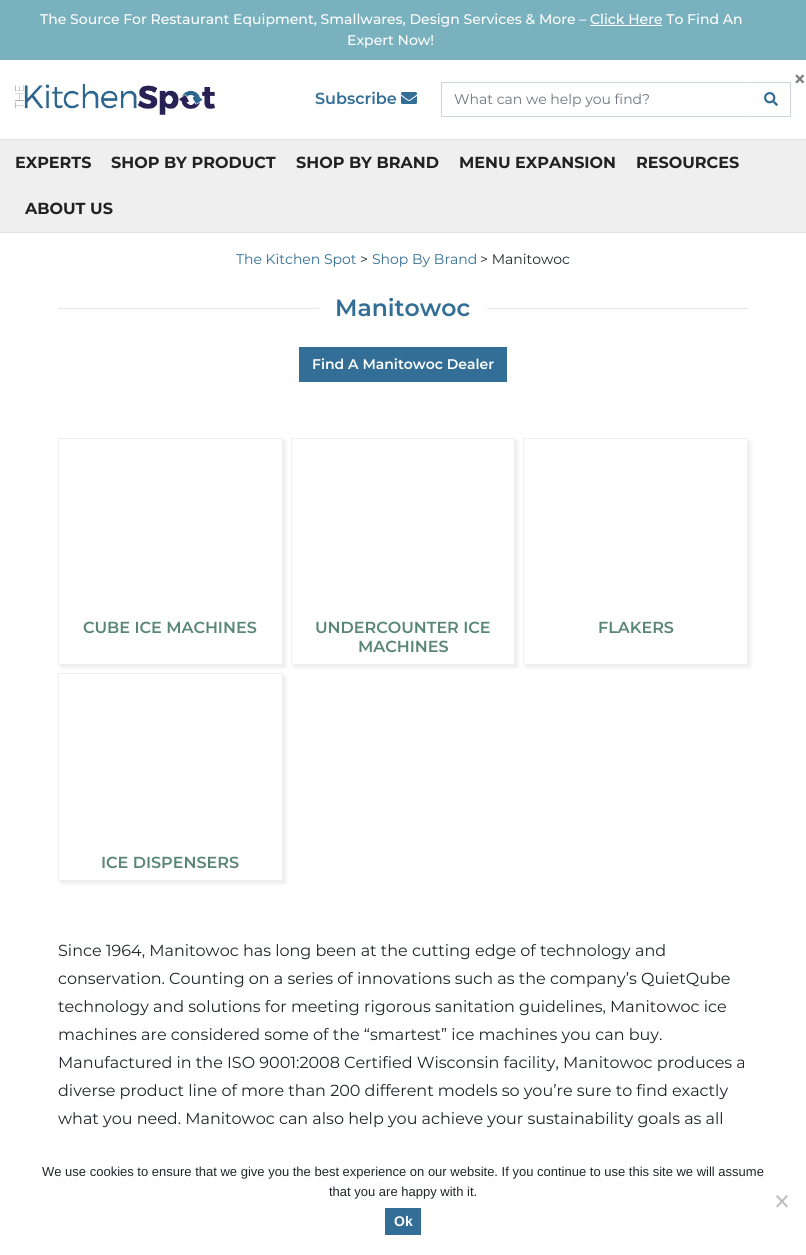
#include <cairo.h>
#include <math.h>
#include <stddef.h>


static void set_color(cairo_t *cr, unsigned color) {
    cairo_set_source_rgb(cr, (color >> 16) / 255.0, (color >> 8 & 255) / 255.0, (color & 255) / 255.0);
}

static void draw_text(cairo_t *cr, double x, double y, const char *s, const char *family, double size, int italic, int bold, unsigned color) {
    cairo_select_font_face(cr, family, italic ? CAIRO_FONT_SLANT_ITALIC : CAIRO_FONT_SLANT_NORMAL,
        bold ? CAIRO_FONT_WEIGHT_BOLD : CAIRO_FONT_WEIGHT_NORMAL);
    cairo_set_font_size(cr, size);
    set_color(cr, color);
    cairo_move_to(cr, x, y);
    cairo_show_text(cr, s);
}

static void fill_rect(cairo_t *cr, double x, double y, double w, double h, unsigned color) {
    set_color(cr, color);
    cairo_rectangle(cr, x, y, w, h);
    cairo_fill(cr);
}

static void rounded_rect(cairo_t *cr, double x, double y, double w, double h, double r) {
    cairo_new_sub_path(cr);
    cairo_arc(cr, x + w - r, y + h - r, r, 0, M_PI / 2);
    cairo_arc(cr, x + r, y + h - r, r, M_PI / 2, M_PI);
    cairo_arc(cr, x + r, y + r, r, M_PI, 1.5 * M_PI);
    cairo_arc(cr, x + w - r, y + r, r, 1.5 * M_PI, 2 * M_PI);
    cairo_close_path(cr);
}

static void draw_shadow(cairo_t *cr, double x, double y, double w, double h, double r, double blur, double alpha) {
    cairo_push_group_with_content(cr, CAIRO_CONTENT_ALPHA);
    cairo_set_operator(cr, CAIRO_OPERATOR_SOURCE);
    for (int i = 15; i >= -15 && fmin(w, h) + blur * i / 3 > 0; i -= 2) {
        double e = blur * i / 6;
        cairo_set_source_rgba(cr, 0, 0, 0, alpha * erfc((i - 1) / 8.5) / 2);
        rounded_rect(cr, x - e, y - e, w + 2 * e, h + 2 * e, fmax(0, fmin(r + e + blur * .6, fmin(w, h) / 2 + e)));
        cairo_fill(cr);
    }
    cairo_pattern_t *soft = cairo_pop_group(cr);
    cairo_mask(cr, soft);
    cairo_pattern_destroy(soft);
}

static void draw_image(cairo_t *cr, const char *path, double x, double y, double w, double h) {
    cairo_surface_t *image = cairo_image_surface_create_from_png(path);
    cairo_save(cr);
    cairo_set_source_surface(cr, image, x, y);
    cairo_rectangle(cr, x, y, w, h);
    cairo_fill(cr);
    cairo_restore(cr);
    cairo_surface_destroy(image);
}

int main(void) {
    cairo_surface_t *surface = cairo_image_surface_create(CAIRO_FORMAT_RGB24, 806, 1255);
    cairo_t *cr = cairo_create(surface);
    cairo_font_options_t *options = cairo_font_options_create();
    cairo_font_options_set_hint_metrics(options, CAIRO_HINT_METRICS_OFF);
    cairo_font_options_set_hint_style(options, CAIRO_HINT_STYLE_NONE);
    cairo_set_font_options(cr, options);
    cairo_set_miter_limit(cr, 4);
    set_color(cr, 0xFFFFFF);
    cairo_paint(cr);
    fill_rect(cr, 0, 0, 806, 60, 0x79B2BE);
    draw_text(cr, 40, 24, "The Source For Restaurant Equipment, Smallwares, Design Services & More – Click Here To Find An", "Montserrat Medium", 14, 0, 0, 0xFFFFFF);
    fill_rect(cr, 590, 25, 72, 1, 0xFFFFFF);
    draw_text(cr, 347, 45, "Expert Now!", "Montserrat Medium", 14, 0, 0, 0xFFFFFF);
    draw_text(cr, 793, 87, "×", "Montserrat SemiBold", 23, 0, 0, 0x808080);
    draw_image(cr, "assets/img1.png", 15, 84, 200, 31);
    draw_text(cr, 315, 104, "Subscribe", "Montserrat SemiBold", 16, 0, 0, 0x326E95);
    draw_image(cr, "assets/img2.png", 401, 92, 16, 12);
    set_color(cr, 0xCED4DA);
    cairo_new_path(cr);
    cairo_move_to(cr, 441, 82);
    cairo_line_to(cr, 752, 82);
    cairo_line_to(cr, 751, 83);
    cairo_line_to(cr, 442, 83);
    cairo_close_path(cr);
    cairo_fill(cr);
    cairo_new_path(cr);
    cairo_move_to(cr, 752, 117);
    cairo_line_to(cr, 441, 117);
    cairo_line_to(cr, 442, 116);
    cairo_line_to(cr, 751, 116);
    cairo_close_path(cr);
    cairo_fill(cr);
    fill_rect(cr, 441, 82, 1, 35, 0xCED4DA);
    draw_text(cr, 454, 104, "What can we help you find?", "Montserrat", 14, 0, 0, 0x6C757D);
    set_color(cr, 0xCED4DA);
    cairo_new_path(cr);
    cairo_move_to(cr, 751, 82);
    cairo_line_to(cr, 791, 82);
    cairo_line_to(cr, 790, 83);
    cairo_line_to(cr, 752, 83);
    cairo_close_path(cr);
    cairo_fill(cr);
    fill_rect(cr, 790, 82, 1, 35, 0xCED4DA);
    cairo_new_path(cr);
    cairo_move_to(cr, 791, 117);
    cairo_line_to(cr, 751, 117);
    cairo_line_to(cr, 752, 116);
    cairo_line_to(cr, 790, 116);
    cairo_close_path(cr);
    cairo_fill(cr);
    draw_image(cr, "assets/img3.png", 764, 92, 14, 14);
    fill_rect(cr, 0, 140, 806, 92, 0xEFEFEF);
    fill_rect(cr, 0, 139, 806, 1, 0xDEE2E6);
    fill_rect(cr, 0, 232, 806, 1, 0xDEE2E6);
    draw_text(cr, 15, 168, "EXPERTS", "Montserrat", 16, 0, 1, 0x222222);
    draw_text(cr, 111, 168, "SHOP BY PRODUCT", "Montserrat", 16, 0, 1, 0x222222);
    draw_text(cr, 296, 168, "SHOP BY BRAND", "Montserrat", 16, 0, 1, 0x222222);
    draw_text(cr, 459, 168, "MENU EXPANSION", "Montserrat", 16, 0, 1, 0x222222);
    draw_text(cr, 636, 168, "RESOURCES", "Montserrat", 16, 0, 1, 0x222222);
    draw_text(cr, 25, 214, "ABOUT US", "Montserrat", 16, 0, 1, 0x222222);
    draw_text(cr, 236, 264, "The Kitchen Spot", "Montserrat", 14, 0, 0, 0x326E95);
    draw_text(cr, 360, 264, ">", "Montserrat", 14, 0, 0, 0x212529);
    draw_text(cr, 372, 264, "Shop By Brand", "Montserrat", 14, 0, 0, 0x326E95);
    draw_text(cr, 480, 264, "> Manitowoc", "Montserrat", 14, 0, 0, 0x212529);
    fill_rect(cr, 58, 308, 690, 1, 0xE6E6E6);
    fill_rect(cr, 319, 308, 168, 1, 0xFFFFFF);
    draw_text(cr, 335, 316, "Manitowoc", "Montserrat SemiBold", 23.5, 0, 0, 0x326E95);
    fill_rect(cr, 299, 347, 208, 35, 0x326E95);
    draw_text(cr, 312, 369, "Find A Manitowoc Dealer", "Montserrat SemiBold", 14, 0, 0, 0xFFFFFF);
    cairo_save(cr);
    cairo_set_fill_rule(cr, CAIRO_FILL_RULE_EVEN_ODD);
    cairo_new_path(cr);
    cairo_move_to(cr, 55, 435);
    cairo_line_to(cr, 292, 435);
    cairo_line_to(cr, 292, 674);
    cairo_line_to(cr, 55, 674);
    cairo_close_path(cr);
    cairo_move_to(cr, 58, 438);
    cairo_line_to(cr, 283, 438);
    cairo_line_to(cr, 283, 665);
    cairo_line_to(cr, 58, 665);
    cairo_close_path(cr);
    cairo_clip(cr);
    set_color(cr, 0xEFEFEF);
    draw_shadow(cr, 61, 441, 225, 227, 0, 1.5, 1);
    cairo_restore(cr);
    cairo_rectangle(cr, 58.5, 438.5, 224, 226);
    set_color(cr, 0xEFEFEF);
    cairo_set_line_width(cr, 1);
    cairo_stroke(cr);
    draw_text(cr, 83, 633, "CUBE ICE MACHINES", "Montserrat SemiBold", 16, 0, 0, 0x598677);
    cairo_save(cr);
    cairo_set_fill_rule(cr, CAIRO_FILL_RULE_EVEN_ODD);
    cairo_new_path(cr);
    cairo_move_to(cr, 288, 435);
    cairo_line_to(cr, 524, 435);
    cairo_line_to(cr, 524, 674);
    cairo_line_to(cr, 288, 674);
    cairo_close_path(cr);
    cairo_move_to(cr, 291, 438);
    cairo_line_to(cr, 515, 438);
    cairo_line_to(cr, 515, 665);
    cairo_line_to(cr, 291, 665);
    cairo_close_path(cr);
    cairo_clip(cr);
    set_color(cr, 0xEFEFEF);
    draw_shadow(cr, 294, 441, 224, 227, 0, 1.5, 1);
    cairo_restore(cr);
    cairo_rectangle(cr, 291.5, 438.5, 223, 226);
    set_color(cr, 0xEFEFEF);
    cairo_stroke(cr);
    draw_text(cr, 315, 633, "UNDERCOUNTER ICE", "Montserrat SemiBold", 16, 0, 0, 0x598677);
    draw_text(cr, 358, 652, "MACHINES", "Montserrat SemiBold", 16, 0, 0, 0x598677);
    cairo_save(cr);
    cairo_set_fill_rule(cr, CAIRO_FILL_RULE_EVEN_ODD);
    cairo_new_path(cr);
    cairo_move_to(cr, 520, 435);
    cairo_line_to(cr, 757, 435);
    cairo_line_to(cr, 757, 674);
    cairo_line_to(cr, 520, 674);
    cairo_close_path(cr);
    cairo_move_to(cr, 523, 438);
    cairo_line_to(cr, 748, 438);
    cairo_line_to(cr, 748, 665);
    cairo_line_to(cr, 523, 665);
    cairo_close_path(cr);
    cairo_clip(cr);
    set_color(cr, 0xEFEFEF);
    draw_shadow(cr, 526, 441, 225, 227, 0, 1.5, 1);
    cairo_restore(cr);
    cairo_rectangle(cr, 523.5, 438.5, 224, 226);
    set_color(cr, 0xEFEFEF);
    cairo_stroke(cr);
    draw_text(cr, 598, 633, "FLAKERS", "Montserrat SemiBold", 16, 0, 0, 0x598677);
    cairo_save(cr);
    cairo_set_fill_rule(cr, CAIRO_FILL_RULE_EVEN_ODD);
    cairo_new_path(cr);
    cairo_move_to(cr, 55, 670);
    cairo_line_to(cr, 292, 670);
    cairo_line_to(cr, 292, 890);
    cairo_line_to(cr, 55, 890);
    cairo_close_path(cr);
    cairo_move_to(cr, 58, 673);
    cairo_line_to(cr, 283, 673);
    cairo_line_to(cr, 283, 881);
    cairo_line_to(cr, 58, 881);
    cairo_close_path(cr);
    cairo_clip(cr);
    set_color(cr, 0xEFEFEF);
    draw_shadow(cr, 61, 676, 225, 208, 0, 1.5, 1);
    cairo_restore(cr);
    cairo_rectangle(cr, 58.5, 673.5, 224, 207);
    set_color(cr, 0xEFEFEF);
    cairo_stroke(cr);
    draw_text(cr, 101, 868, "ICE DISPENSERS", "Montserrat SemiBold", 16, 0, 0, 0x598677);
    draw_text(cr, 58, 956, "Since 1964, Manitowoc has long been at the cutting edge of technology and", "Montserrat", 16, 0, 0, 0x212529);
    draw_text(cr, 58, 984, "conservation. Counting on a series of innovations such as the company’s QuietQube", "Montserrat", 16, 0, 0, 0x212529);
    draw_text(cr, 58, 1012, "technology and solutions for meeting rigorous sanitation guidelines, Manitowoc ice", "Montserrat", 16, 0, 0, 0x212529);
    draw_text(cr, 58, 1040, "machines are considered some of the “smartest” ice machines you can buy.", "Montserrat", 16, 0, 0, 0x212529);
    draw_text(cr, 58, 1068, "Manufactured in the ISO 9001:2008 Certified Wisconsin facility, Manitowoc produces a", "Montserrat", 16, 0, 0, 0x212529);
    draw_text(cr, 58, 1096, "diverse product line of more than 200 different models so you’re sure to find exactly", "Montserrat", 16, 0, 0, 0x212529);
    draw_text(cr, 58, 1124, "what you need. Manitowoc can also help you achieve your sustainability goals as all", "Montserrat", 16, 0, 0, 0x212529);
    draw_text(cr, 42, 1176, "We use cookies to ensure that we give you the best experience on our website. If you continue to use this site we will assume", "Liberation Sans", 13, 0, 0, 0x212529);
    draw_text(cr, 329, 1196, "that you are happy with it.", "Liberation Sans", 13, 0, 0, 0x212529);
    set_color(cr, 0xBFBFBF);
    cairo_new_path(cr);
    cairo_move_to(cr, 786.5, 1195);
    cairo_line_to(cr, 788, 1196.5);
    cairo_line_to(cr, 777.5, 1207.5);
    cairo_line_to(cr, 776, 1206);
    cairo_close_path(cr);
    cairo_fill(cr);
    cairo_new_path(cr);
    cairo_move_to(cr, 776, 1196.5);
    cairo_line_to(cr, 777.5, 1195);
    cairo_line_to(cr, 788, 1206);
    cairo_line_to(cr, 786.5, 1207.5);
    cairo_close_path(cr);
    cairo_fill(cr);
    fill_rect(cr, 385, 1208, 36, 27, 0x326E95);
    draw_text(cr, 394, 1226, "Ok", "Liberation Sans", 14, 0, 1, 0xFFFFFF);
    cairo_surface_write_to_png(surface, "output.png");
    cairo_font_options_destroy(options);
    cairo_destroy(cr);
    cairo_surface_destroy(surface);
    return 0;
}
